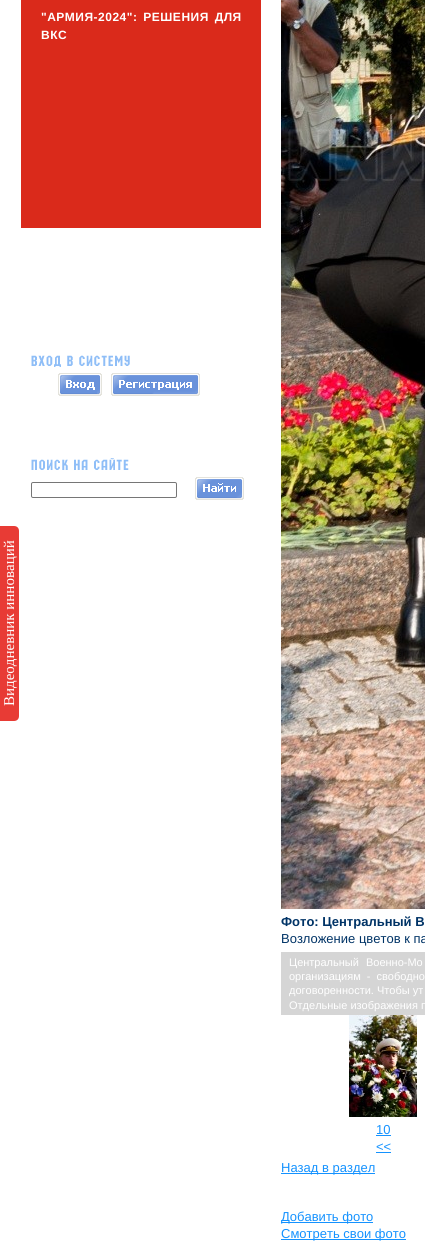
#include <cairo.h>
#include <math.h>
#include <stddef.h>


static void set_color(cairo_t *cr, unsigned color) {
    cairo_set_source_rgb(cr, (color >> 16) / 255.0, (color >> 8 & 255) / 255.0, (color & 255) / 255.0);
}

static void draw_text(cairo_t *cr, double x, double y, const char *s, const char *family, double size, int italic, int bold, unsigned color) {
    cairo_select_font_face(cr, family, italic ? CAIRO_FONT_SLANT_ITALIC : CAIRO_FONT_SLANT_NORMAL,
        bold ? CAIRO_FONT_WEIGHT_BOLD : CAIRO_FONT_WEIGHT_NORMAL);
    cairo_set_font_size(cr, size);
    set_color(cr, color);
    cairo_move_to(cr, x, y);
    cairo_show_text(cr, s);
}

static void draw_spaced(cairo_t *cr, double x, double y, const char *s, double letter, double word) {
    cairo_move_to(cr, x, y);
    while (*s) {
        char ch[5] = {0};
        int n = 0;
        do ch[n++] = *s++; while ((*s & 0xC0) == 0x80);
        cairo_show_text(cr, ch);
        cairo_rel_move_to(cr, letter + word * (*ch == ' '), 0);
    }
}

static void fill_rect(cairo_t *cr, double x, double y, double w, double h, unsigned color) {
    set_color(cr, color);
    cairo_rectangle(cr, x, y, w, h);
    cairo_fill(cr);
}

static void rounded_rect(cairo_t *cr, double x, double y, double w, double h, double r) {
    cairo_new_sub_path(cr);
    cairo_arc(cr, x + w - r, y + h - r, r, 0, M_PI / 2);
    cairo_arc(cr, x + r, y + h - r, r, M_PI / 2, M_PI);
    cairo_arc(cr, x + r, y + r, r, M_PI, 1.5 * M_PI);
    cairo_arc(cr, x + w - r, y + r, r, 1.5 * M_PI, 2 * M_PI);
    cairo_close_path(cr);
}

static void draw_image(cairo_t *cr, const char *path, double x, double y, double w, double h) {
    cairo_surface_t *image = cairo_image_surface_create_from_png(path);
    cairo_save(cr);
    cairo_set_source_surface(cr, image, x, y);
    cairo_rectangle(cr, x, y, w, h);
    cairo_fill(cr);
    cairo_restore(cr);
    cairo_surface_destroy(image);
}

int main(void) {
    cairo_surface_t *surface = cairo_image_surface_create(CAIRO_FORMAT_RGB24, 425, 1247);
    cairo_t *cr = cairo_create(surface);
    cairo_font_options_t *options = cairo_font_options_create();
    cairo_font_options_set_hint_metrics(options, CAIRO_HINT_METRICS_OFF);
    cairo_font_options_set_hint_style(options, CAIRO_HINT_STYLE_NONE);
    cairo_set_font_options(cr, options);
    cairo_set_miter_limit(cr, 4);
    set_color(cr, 0xFFFFFF);
    cairo_paint(cr);
    set_color(cr, 0xE83B35);
    cairo_new_path(cr);
    cairo_move_to(cr, 0, 721);
    cairo_line_to(cr, 0, 526);
    cairo_line_to(cr, 14, 526);
    cairo_curve_to(cr, 17, 526, 19, 528, 19, 531);
    cairo_line_to(cr, 19, 716);
    cairo_curve_to(cr, 19, 719, 17, 721, 14, 721);
    cairo_close_path(cr);
    cairo_fill(cr);
    cairo_save(cr);
    cairo_translate(cr, 14, 706);
    cairo_rotate(cr, -90 * M_PI / 180);
    draw_text(cr, 0, 0, "Видеодневник инноваций", "Liberation Serif", 15, 0, 0, 0xFFFFFF);
    cairo_restore(cr);
    fill_rect(cr, 21, 0, 240, 228, 0xDA2A1B);
    cairo_select_font_face(cr, "Liberation Sans", CAIRO_FONT_SLANT_NORMAL, CAIRO_FONT_WEIGHT_BOLD);
    cairo_set_font_size(cr, 12);
    set_color(cr, 0xFFFFFF);
    draw_spaced(cr, 41, 21, "\"АРМИЯ-2024\": РЕШЕНИЯ ДЛЯ", 0.5, 2);
    draw_spaced(cr, 41, 39, "ВКС", 0.5, 0);
    draw_image(cr, "assets/img1.png", 31, 355, 99, 12);
    draw_image(cr, "assets/img2.png", 58, 373, 44, 23);
    draw_image(cr, "assets/img3.png", 111, 373, 89, 23);
    draw_image(cr, "assets/img4.png", 31, 458, 98, 12);
    rounded_rect(cr, 31.5, 482.5, 145, 15, 1.5);
    set_color(cr, 0x767676);
    cairo_set_line_width(cr, 1);
    cairo_stroke(cr);
    draw_image(cr, "assets/img5.png", 195, 477, 49, 23);
    draw_image(cr, "assets/img6.png", 281, 0, 144, 909);
    draw_text(cr, 281, 926, "Фото: Центральный В", "Liberation Sans", 13, 0, 1, 0x003366);
    draw_text(cr, 281, 943, "Возложение цветов к па", "Liberation Sans", 13, 0, 0, 0x003366);
    fill_rect(cr, 281, 952, 144, 63, 0xD5D5D5);
    cairo_set_font_size(cr, 11);
    set_color(cr, 0xFFFFFF);
    draw_spaced(cr, 289, 966, "Центральный Военно-Мо", 0, 4);
    draw_spaced(cr, 289, 980, "организациям - свободно", 0, 3);
    draw_text(cr, 289, 994, "договоренности. Чтобы ут", "Liberation Sans", 11, 0, 0, 0xFFFFFF);
    draw_text(cr, 289, 1009, "Отдельные изображения п", "Liberation Sans", 11, 0, 0, 0xFFFFFF);
    draw_image(cr, "assets/img7.png", 349, 1015, 68, 102);
    draw_text(cr, 376, 1134, "10", "Liberation Sans", 13, 0, 0, 0x1492FF);
    fill_rect(cr, 376, 1135, 15, 1, 0x1492FF);
    draw_text(cr, 376, 1151, "<<", "Liberation Sans", 13, 0, 0, 0x1492FF);
    fill_rect(cr, 376, 1152, 15, 1, 0x1492FF);
    fill_rect(cr, 281, 1173, 94, 1, 0x1492FF);
    draw_text(cr, 281, 1172, "Назад в раздел", "Liberation Sans", 13, 0, 0, 0x1492FF);
    fill_rect(cr, 281, 1222, 92, 1, 0x1492FF);
    draw_text(cr, 281, 1221, "Добавить фото", "Liberation Sans", 13, 0, 0, 0x1492FF);
    fill_rect(cr, 281, 1239, 125, 1, 0x1492FF);
    draw_text(cr, 281, 1238, "Смотреть свои фото", "Liberation Sans", 13, 0, 0, 0x1492FF);
    cairo_surface_write_to_png(surface, "output.png");
    cairo_font_options_destroy(options);
    cairo_destroy(cr);
    cairo_surface_destroy(surface);
    return 0;
}
